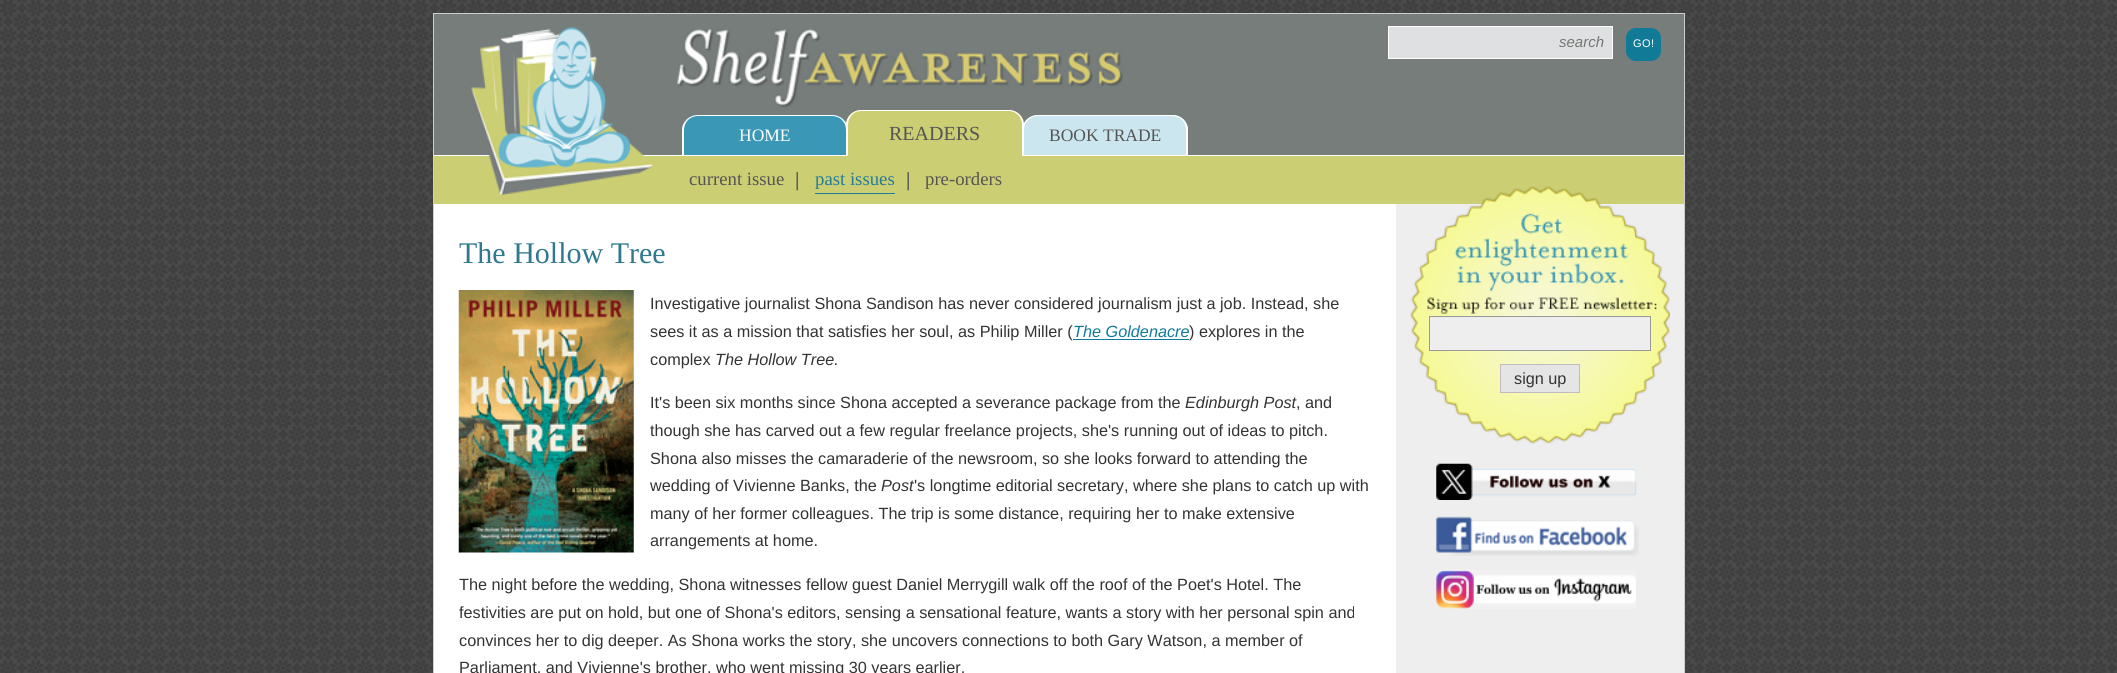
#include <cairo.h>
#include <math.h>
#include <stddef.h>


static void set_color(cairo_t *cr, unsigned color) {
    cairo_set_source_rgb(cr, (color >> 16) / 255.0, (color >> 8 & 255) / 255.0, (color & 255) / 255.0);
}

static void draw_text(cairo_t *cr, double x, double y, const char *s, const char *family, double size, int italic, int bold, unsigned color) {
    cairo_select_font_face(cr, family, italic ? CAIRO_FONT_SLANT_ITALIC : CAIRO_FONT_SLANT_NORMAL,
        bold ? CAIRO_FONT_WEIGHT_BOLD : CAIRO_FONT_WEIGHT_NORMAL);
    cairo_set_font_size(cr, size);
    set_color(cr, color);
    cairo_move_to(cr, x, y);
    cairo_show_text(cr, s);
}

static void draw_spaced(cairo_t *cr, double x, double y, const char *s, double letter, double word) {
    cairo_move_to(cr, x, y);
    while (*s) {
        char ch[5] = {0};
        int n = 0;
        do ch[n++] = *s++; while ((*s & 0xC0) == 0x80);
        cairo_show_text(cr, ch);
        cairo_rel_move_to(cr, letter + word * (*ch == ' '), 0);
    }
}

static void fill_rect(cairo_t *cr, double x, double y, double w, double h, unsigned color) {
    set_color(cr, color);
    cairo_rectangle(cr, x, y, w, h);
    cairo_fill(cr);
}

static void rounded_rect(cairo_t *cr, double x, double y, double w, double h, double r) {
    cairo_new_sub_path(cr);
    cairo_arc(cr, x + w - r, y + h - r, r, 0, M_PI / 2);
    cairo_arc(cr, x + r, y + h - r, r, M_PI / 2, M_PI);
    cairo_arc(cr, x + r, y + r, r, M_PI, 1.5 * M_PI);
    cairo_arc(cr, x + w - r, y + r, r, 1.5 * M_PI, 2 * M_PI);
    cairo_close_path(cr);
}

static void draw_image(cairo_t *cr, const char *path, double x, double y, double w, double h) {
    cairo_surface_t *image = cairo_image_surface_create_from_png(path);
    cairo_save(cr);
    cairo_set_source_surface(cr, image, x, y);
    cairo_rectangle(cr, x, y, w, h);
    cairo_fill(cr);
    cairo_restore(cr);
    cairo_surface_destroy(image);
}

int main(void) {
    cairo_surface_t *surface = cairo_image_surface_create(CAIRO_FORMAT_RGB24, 2117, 673);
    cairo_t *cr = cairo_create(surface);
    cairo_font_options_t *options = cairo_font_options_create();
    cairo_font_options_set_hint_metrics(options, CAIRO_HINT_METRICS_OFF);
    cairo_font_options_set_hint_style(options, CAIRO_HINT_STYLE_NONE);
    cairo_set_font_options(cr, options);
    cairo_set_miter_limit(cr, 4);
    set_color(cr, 0xFFFFFF);
    cairo_paint(cr);
    draw_image(cr, "assets/img1.png", 0, 0, 2117, 673);
    cairo_rectangle(cr, 433.5, 13.5, 1251, 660);
    set_color(cr, 0xCECECE);
    cairo_set_line_width(cr, 1);
    cairo_stroke(cr);
    fill_rect(cr, 434, 14, 1250, 141, 0x767D7B);
    fill_rect(cr, 434, 156, 1250, 48, 0xCBCE73);
    fill_rect(cr, 434, 155, 1250, 1, 0xFFFFFF);
    draw_image(cr, "assets/img2.png", 471, 27, 182, 168);
    draw_image(cr, "assets/img3.png", 677, 28, 446, 80);
    set_color(cr, 0xDFE0E1);
    cairo_rectangle(cr, 1388.5, 26.5, 224, 32);
    cairo_fill_preserve(cr);
    set_color(cr, 0xFFFFFF);
    cairo_stroke(cr);
    draw_text(cr, 1559, 47, "search", "Liberation Sans", 15, 1, 0, 0x757575);
    set_color(cr, 0x117A97);
    rounded_rect(cr, 1626, 28, 35, 33, 10);
    cairo_fill(cr);
    cairo_select_font_face(cr, "Liberation Sans", CAIRO_FONT_SLANT_NORMAL, CAIRO_FONT_WEIGHT_NORMAL);
    cairo_set_font_size(cr, 11);
    set_color(cr, 0xFFFFFF);
    draw_spaced(cr, 1633, 47, "GO!", 0.5, 0);
    set_color(cr, 0x3A97B6);
    cairo_new_path(cr);
    cairo_move_to(cr, 698, 115);
    cairo_line_to(cr, 833, 115);
    cairo_curve_to(cr, 841.5, 115, 848, 121.5, 848, 130);
    cairo_line_to(cr, 848, 155);
    cairo_line_to(cr, 683, 155);
    cairo_line_to(cr, 683, 130);
    cairo_curve_to(cr, 683, 121.5, 689.5, 115, 698, 115);
    cairo_close_path(cr);
    cairo_fill(cr);
    set_color(cr, 0xFFFFFF);
    cairo_set_fill_rule(cr, CAIRO_FILL_RULE_EVEN_ODD);
    cairo_new_path(cr);
    cairo_move_to(cr, 698, 115);
    cairo_line_to(cr, 832, 115);
    cairo_curve_to(cr, 841, 115, 848, 122, 848, 130);
    cairo_line_to(cr, 848, 155);
    cairo_line_to(cr, 682, 155);
    cairo_line_to(cr, 682, 130);
    cairo_curve_to(cr, 682, 122, 689, 115, 698, 115);
    cairo_close_path(cr);
    cairo_move_to(cr, 698, 116);
    cairo_line_to(cr, 832, 116);
    cairo_curve_to(cr, 840, 116, 846, 122, 846, 130);
    cairo_line_to(cr, 846, 155);
    cairo_line_to(cr, 684, 155);
    cairo_line_to(cr, 684, 130);
    cairo_curve_to(cr, 684, 122, 690, 116, 698, 116);
    cairo_close_path(cr);
    cairo_fill(cr);
    set_color(cr, 0xCBCE73);
    cairo_new_path(cr);
    cairo_move_to(cr, 861, 110);
    cairo_line_to(cr, 1009, 110);
    cairo_curve_to(cr, 1017.5, 110, 1024, 116.5, 1024, 125);
    cairo_line_to(cr, 1024, 156);
    cairo_line_to(cr, 846, 156);
    cairo_line_to(cr, 846, 125);
    cairo_curve_to(cr, 846, 116.5, 852.5, 110, 861, 110);
    cairo_close_path(cr);
    cairo_fill(cr);
    set_color(cr, 0xFFFFFF);
    cairo_new_path(cr);
    cairo_move_to(cr, 861, 110);
    cairo_line_to(cr, 1009, 110);
    cairo_curve_to(cr, 1017, 110, 1024, 117, 1024, 125);
    cairo_line_to(cr, 1024, 156);
    cairo_line_to(cr, 846, 156);
    cairo_line_to(cr, 846, 125);
    cairo_curve_to(cr, 846, 117, 853, 110, 861, 110);
    cairo_close_path(cr);
    cairo_move_to(cr, 861, 111);
    cairo_line_to(cr, 1009, 111);
    cairo_curve_to(cr, 1016, 111, 1022, 117, 1022, 125);
    cairo_line_to(cr, 1022, 156);
    cairo_line_to(cr, 848, 156);
    cairo_line_to(cr, 848, 125);
    cairo_curve_to(cr, 848, 117, 854, 111, 861, 111);
    cairo_close_path(cr);
    cairo_fill(cr);
    draw_text(cr, 889, 140, "READERS", "Liberation Serif", 20, 0, 0, 0x555555);
    draw_text(cr, 689, 185, "current issue", "Liberation Serif", 18.75, 0, 0, 0x555555);
    draw_text(cr, 795, 186, "|", "Liberation Serif", 20, 0, 1, 0x555555);
    fill_rect(cr, 815, 193, 80, 1, 0x237B99);
    draw_text(cr, 815, 185, "past issues", "Liberation Serif", 18.75, 0, 0, 0x237B99);
    draw_text(cr, 906, 186, "|", "Liberation Serif", 20, 0, 1, 0x555555);
    draw_text(cr, 925, 185, "pre-orders", "Liberation Serif", 18.75, 0, 0, 0x555555);
    draw_text(cr, 739, 141, "HOME", "Liberation Serif", 17.5, 0, 0, 0xFFFFFF);
    set_color(cr, 0xCBE6EF);
    cairo_new_path(cr);
    cairo_move_to(cr, 1038, 115);
    cairo_line_to(cr, 1173, 115);
    cairo_curve_to(cr, 1181.5, 115, 1188, 121.5, 1188, 130);
    cairo_line_to(cr, 1188, 155);
    cairo_line_to(cr, 1023, 155);
    cairo_line_to(cr, 1023, 130);
    cairo_curve_to(cr, 1023, 121.5, 1029.5, 115, 1038, 115);
    cairo_close_path(cr);
    cairo_fill(cr);
    set_color(cr, 0xFFFFFF);
    cairo_new_path(cr);
    cairo_move_to(cr, 1038, 115);
    cairo_line_to(cr, 1172, 115);
    cairo_curve_to(cr, 1181, 115, 1188, 122, 1188, 130);
    cairo_line_to(cr, 1188, 155);
    cairo_line_to(cr, 1022, 155);
    cairo_line_to(cr, 1022, 130);
    cairo_curve_to(cr, 1022, 122, 1029, 115, 1038, 115);
    cairo_close_path(cr);
    cairo_move_to(cr, 1038, 116);
    cairo_line_to(cr, 1172, 116);
    cairo_curve_to(cr, 1180, 116, 1186, 122, 1186, 130);
    cairo_line_to(cr, 1186, 155);
    cairo_line_to(cr, 1024, 155);
    cairo_line_to(cr, 1024, 130);
    cairo_curve_to(cr, 1024, 122, 1030, 116, 1038, 116);
    cairo_close_path(cr);
    cairo_fill(cr);
    draw_text(cr, 1049, 141, "BOOK TRADE", "Liberation Serif", 17.5, 0, 0, 0x555555);
    fill_rect(cr, 1396, 204, 288, 469, 0xEEEEEE);
    fill_rect(cr, 434, 204, 962, 469, 0xFFFFFF);
    draw_text(cr, 459, 263, "The Hollow Tree", "Liberation Serif", 30, 0, 0, 0x2F7890);
    draw_image(cr, "assets/img4.png", 458, 290, 176, 263);
    draw_text(cr, 650, 309, "Investigative journalist Shona Sandison has never considered journalism just a job. Instead, she", "Liberation Sans", 16.25, 0, 0, 0x333333);
    draw_text(cr, 650, 337, "sees it as a mission that satisfies her soul, as Philip Miller (", "Liberation Sans", 16.25, 0, 0, 0x333333);
    draw_text(cr, 1073, 337, "The Goldenacre", "Liberation Sans", 16.25, 1, 0, 0x117A97);
    fill_rect(cr, 1073, 339, 116, 1, 0x117A97);
    draw_text(cr, 1189, 337, ") explores in the", "Liberation Sans", 16.25, 0, 0, 0x333333);
    draw_text(cr, 650, 365, "complex", "Liberation Sans", 16.25, 0, 0, 0x333333);
    draw_text(cr, 715, 365, "The Hollow Tree.", "Liberation Sans", 16.25, 1, 0, 0x333333);
    draw_text(cr, 650, 408, "It's been six months since Shona accepted a severance package from the", "Liberation Sans", 16.25, 0, 0, 0x333333);
    draw_text(cr, 1185, 408, "Edinburgh Post", "Liberation Sans", 16.25, 1, 0, 0x333333);
    draw_text(cr, 1296, 408, ", and", "Liberation Sans", 16.25, 0, 0, 0x333333);
    draw_text(cr, 650, 436, "though she has carved out a few regular freelance projects, she's running out of ideas to pitch.", "Liberation Sans", 16.25, 0, 0, 0x333333);
    draw_text(cr, 650, 464, "Shona also misses the camaraderie of the newsroom, so she looks forward to attending the", "Liberation Sans", 16.25, 0, 0, 0x333333);
    draw_text(cr, 650, 491, "wedding of Vivienne Banks, the", "Liberation Sans", 16.25, 0, 0, 0x333333);
    draw_text(cr, 881, 491, "Post", "Liberation Sans", 16.25, 1, 0, 0x333333);
    draw_text(cr, 914, 491, "'s longtime editorial secretary, where she plans to catch up with", "Liberation Sans", 16.25, 0, 0, 0x333333);
    draw_text(cr, 650, 519, "many of her former colleagues. The trip is some distance, requiring her to make extensive", "Liberation Sans", 16.25, 0, 0, 0x333333);
    draw_text(cr, 650, 546, "arrangements at home.", "Liberation Sans", 16.25, 0, 0, 0x333333);
    draw_text(cr, 459, 590, "The night before the wedding, Shona witnesses fellow guest Daniel Merrygill walk off the roof of the Poet's Hotel. The", "Liberation Sans", 16.25, 0, 0, 0x333333);
    draw_text(cr, 459, 618, "festivities are put on hold, but one of Shona's editors, sensing a sensational feature, wants a story with her personal spin and", "Liberation Sans", 16.25, 0, 0, 0x333333);
    draw_text(cr, 459, 646, "convinces her to dig deeper. As Shona works the story, she uncovers connections to both Gary Watson, a member of", "Liberation Sans", 16.25, 0, 0, 0x333333);
    draw_text(cr, 459, 673, "Parliament, and Vivienne's brother, who went missing 30 years earlier.", "Liberation Sans", 16.25, 0, 0, 0x333333);
    draw_image(cr, "assets/img5.png", 1410, 186, 260, 258);
    set_color(cr, 0xEEEEEE);
    cairo_rectangle(cr, 1429.5, 316.5, 221, 34);
    cairo_fill_preserve(cr);
    set_color(cr, 0x999999);
    cairo_stroke(cr);
    set_color(cr, 0xE5E5E5);
    cairo_rectangle(cr, 1500.5, 364.5, 79, 28);
    cairo_fill_preserve(cr);
    set_color(cr, 0xC0BBC1);
    cairo_stroke(cr);
    draw_text(cr, 1514, 384, "sign up", "Liberation Sans", 16.25, 0, 0, 0x333333);
    draw_image(cr, "assets/img6.png", 1436, 463, 201, 37);
    draw_image(cr, "assets/img7.png", 1436, 516, 203, 40);
    draw_image(cr, "assets/img8.png", 1436, 570, 200, 39);
    cairo_surface_write_to_png(surface, "output.png");
    cairo_font_options_destroy(options);
    cairo_destroy(cr);
    cairo_surface_destroy(surface);
    return 0;
}
